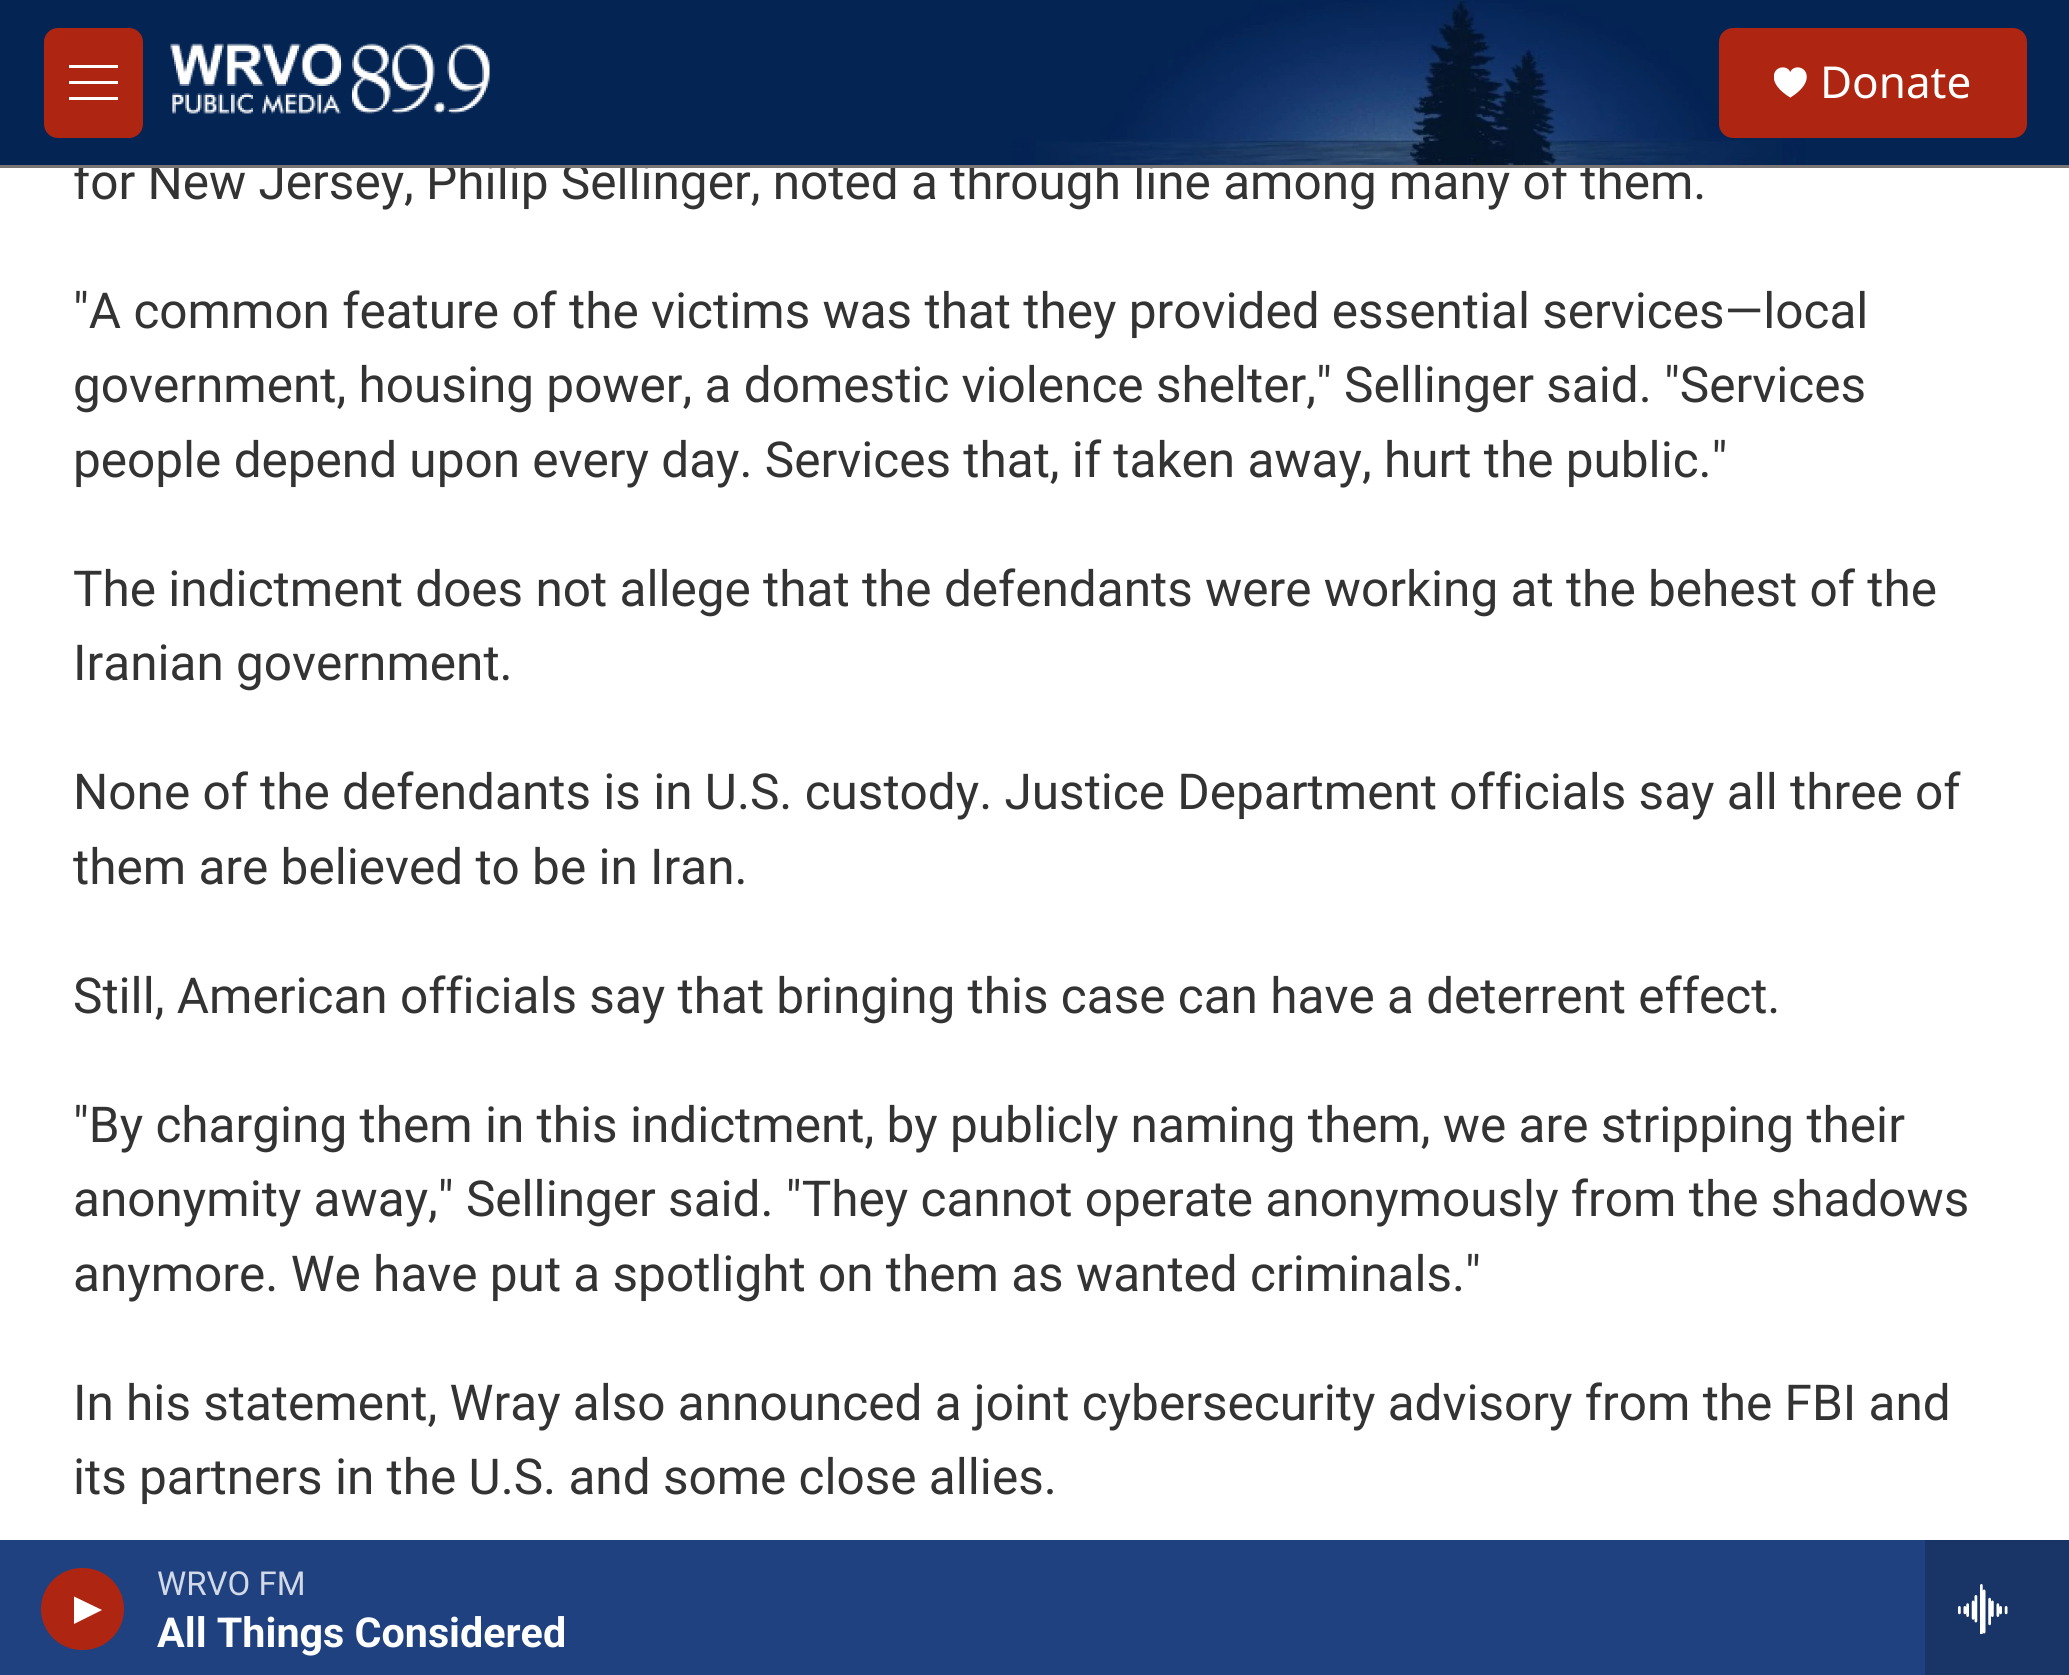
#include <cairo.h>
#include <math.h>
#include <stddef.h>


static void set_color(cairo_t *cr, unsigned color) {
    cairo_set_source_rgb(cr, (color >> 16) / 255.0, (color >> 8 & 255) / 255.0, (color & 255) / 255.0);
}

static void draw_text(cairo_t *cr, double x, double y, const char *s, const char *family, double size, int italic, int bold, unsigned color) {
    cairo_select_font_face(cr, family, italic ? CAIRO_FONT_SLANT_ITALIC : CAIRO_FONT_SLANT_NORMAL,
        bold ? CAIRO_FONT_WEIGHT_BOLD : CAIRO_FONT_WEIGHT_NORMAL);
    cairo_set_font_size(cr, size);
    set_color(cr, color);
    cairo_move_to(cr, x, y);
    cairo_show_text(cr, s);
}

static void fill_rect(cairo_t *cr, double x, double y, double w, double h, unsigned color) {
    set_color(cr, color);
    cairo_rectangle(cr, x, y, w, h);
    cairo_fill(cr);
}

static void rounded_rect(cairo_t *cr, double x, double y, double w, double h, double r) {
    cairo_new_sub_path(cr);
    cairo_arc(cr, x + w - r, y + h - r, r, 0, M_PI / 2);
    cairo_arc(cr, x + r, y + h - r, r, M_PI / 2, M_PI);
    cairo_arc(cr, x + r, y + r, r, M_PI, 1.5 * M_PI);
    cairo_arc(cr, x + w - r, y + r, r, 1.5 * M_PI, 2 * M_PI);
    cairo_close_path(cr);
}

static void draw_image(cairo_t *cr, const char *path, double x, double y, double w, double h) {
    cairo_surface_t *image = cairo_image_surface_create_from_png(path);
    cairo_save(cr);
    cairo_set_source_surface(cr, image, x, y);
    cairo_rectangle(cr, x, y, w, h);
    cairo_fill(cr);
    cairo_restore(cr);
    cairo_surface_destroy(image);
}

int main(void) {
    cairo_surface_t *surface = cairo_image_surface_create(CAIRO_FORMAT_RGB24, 2069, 1675);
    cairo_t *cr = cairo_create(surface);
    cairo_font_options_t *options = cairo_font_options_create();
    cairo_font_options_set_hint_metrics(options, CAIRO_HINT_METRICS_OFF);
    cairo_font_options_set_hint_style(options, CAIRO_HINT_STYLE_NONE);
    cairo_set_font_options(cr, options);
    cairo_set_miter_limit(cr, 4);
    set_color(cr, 0xFFFFFF);
    cairo_paint(cr);
    draw_text(cr, 73, 199, "for New Jersey, Philip Sellinger, noted a through line among many of them.", "Roboto", 49.5, 0, 0, 0x333333);
    fill_rect(cr, 0, 165, 2069, 3, 0x7A7575);
    draw_image(cr, "assets/img1.png", 0, 0, 2069, 165);
    set_color(cr, 0xAE2512);
    rounded_rect(cr, 44, 28, 99, 110, 14);
    cairo_fill(cr);
    set_color(cr, 0xFFFFFF);
    cairo_set_fill_rule(cr, CAIRO_FILL_RULE_EVEN_ODD);
    cairo_new_path(cr);
    cairo_move_to(cr, 69, 84);
    cairo_line_to(cr, 69, 81);
    cairo_line_to(cr, 118, 81);
    cairo_line_to(cr, 118, 84);
    cairo_close_path(cr);
    cairo_move_to(cr, 69, 68);
    cairo_line_to(cr, 69, 65);
    cairo_line_to(cr, 118, 65);
    cairo_line_to(cr, 118, 68);
    cairo_close_path(cr);
    cairo_move_to(cr, 69, 100);
    cairo_line_to(cr, 69, 97);
    cairo_line_to(cr, 118, 97);
    cairo_line_to(cr, 118, 100);
    cairo_close_path(cr);
    cairo_fill(cr);
    draw_image(cr, "assets/img2.png", 170, 43, 320, 71);
    set_color(cr, 0xAE2512);
    rounded_rect(cr, 1719, 28, 308, 110, 14);
    cairo_fill(cr);
    draw_image(cr, "assets/img3.png", 1774, 67, 33, 31);
    draw_text(cr, 1820, 98, "Donate", "Noto Sans", 44, 0, 0, 0xFFFFFF);
    fill_rect(cr, 0, 1540, 1925, 135, 0x1F4180);
    set_color(cr, 0xAE2512);
    rounded_rect(cr, 41, 1568, 83, 82, 41);
    cairo_fill(cr);
    set_color(cr, 0xFFFFFF);
    cairo_set_fill_rule(cr, CAIRO_FILL_RULE_WINDING);
    cairo_new_path(cr);
    cairo_move_to(cr, 74, 1596.5);
    cairo_line_to(cr, 102, 1610);
    cairo_line_to(cr, 74, 1624);
    cairo_close_path(cr);
    cairo_fill(cr);
    draw_text(cr, 157, 1595, "WRVO FM", "Roboto", 33, 0, 0, 0xD2D9E6);
    draw_text(cr, 157, 1647, "All Things Considered", "Roboto", 41.25, 0, 1, 0xFFFFFF);
    fill_rect(cr, 1925, 1540, 144, 135, 0x193466);
    draw_image(cr, "assets/img4.png", 1958, 1584, 50, 50);
    draw_text(cr, 73, 328, "\"A common feature of the victims was that they provided essential services—local", "Roboto", 49.5, 0, 0, 0x333333);
    draw_text(cr, 73, 402, "government, housing power, a domestic violence shelter,\" Sellinger said. \"Services", "Roboto", 49.5, 0, 0, 0x333333);
    draw_text(cr, 73, 477, "people depend upon every day. Services that, if taken away, hurt the public.\"", "Roboto", 49.5, 0, 0, 0x333333);
    draw_text(cr, 73, 606, "The indictment does not allege that the defendants were working at the behest of the", "Roboto", 49.5, 0, 0, 0x333333);
    draw_text(cr, 73, 680, "Iranian government.", "Roboto", 49.5, 0, 0, 0x333333);
    draw_text(cr, 73, 809, "None of the defendants is in U.S. custody. Justice Department officials say all three of", "Roboto", 49.5, 0, 0, 0x333333);
    draw_text(cr, 73, 884, "them are believed to be in Iran.", "Roboto", 49.5, 0, 0, 0x333333);
    draw_text(cr, 73, 1013, "Still, American officials say that bringing this case can have a deterrent effect.", "Roboto", 49.5, 0, 0, 0x333333);
    draw_text(cr, 73, 1142, "\"By charging them in this indictment, by publicly naming them, we are stripping their", "Roboto", 49.5, 0, 0, 0x333333);
    draw_text(cr, 73, 1216, "anonymity away,\" Sellinger said. \"They cannot operate anonymously from the shadows", "Roboto", 49.5, 0, 0, 0x333333);
    draw_text(cr, 73, 1291, "anymore. We have put a spotlight on them as wanted criminals.\"", "Roboto", 49.5, 0, 0, 0x333333);
    draw_text(cr, 73, 1420, "In his statement, Wray also announced a joint cybersecurity advisory from the FBI and", "Roboto", 49.5, 0, 0, 0x333333);
    draw_text(cr, 73, 1494, "its partners in the U.S. and some close allies.", "Roboto", 49.5, 0, 0, 0x333333);
    cairo_surface_write_to_png(surface, "output.png");
    cairo_font_options_destroy(options);
    cairo_destroy(cr);
    cairo_surface_destroy(surface);
    return 0;
}
